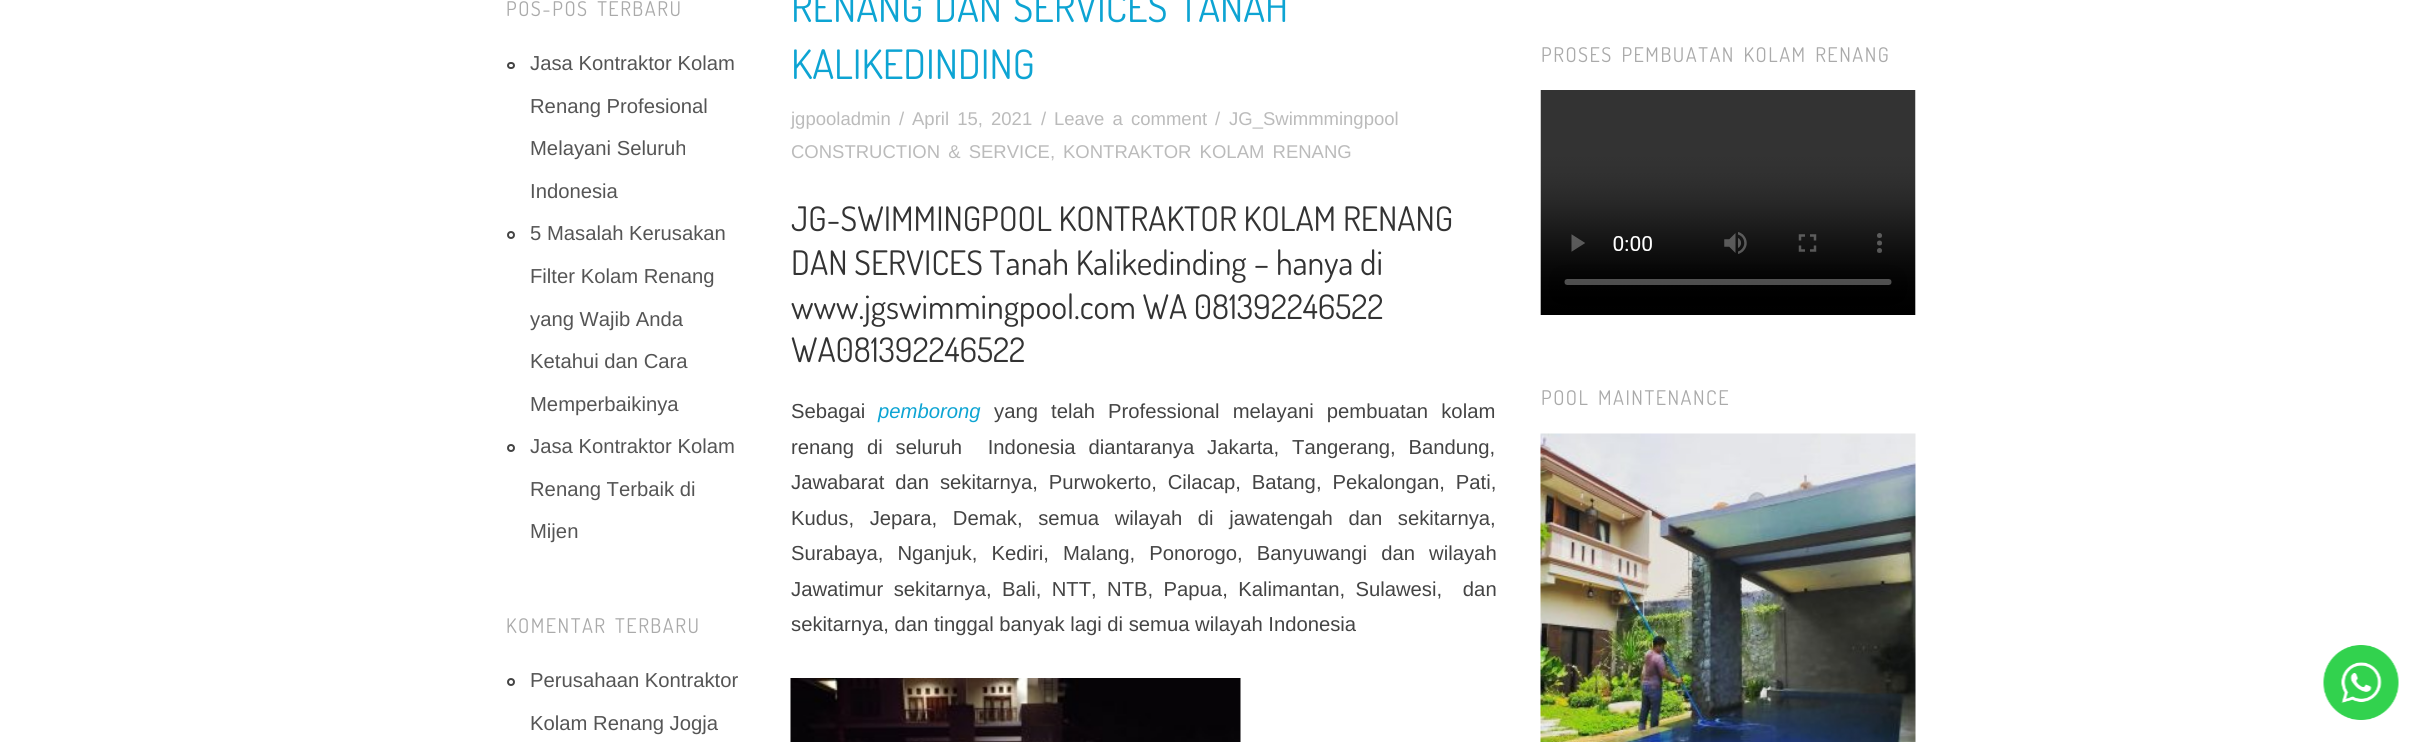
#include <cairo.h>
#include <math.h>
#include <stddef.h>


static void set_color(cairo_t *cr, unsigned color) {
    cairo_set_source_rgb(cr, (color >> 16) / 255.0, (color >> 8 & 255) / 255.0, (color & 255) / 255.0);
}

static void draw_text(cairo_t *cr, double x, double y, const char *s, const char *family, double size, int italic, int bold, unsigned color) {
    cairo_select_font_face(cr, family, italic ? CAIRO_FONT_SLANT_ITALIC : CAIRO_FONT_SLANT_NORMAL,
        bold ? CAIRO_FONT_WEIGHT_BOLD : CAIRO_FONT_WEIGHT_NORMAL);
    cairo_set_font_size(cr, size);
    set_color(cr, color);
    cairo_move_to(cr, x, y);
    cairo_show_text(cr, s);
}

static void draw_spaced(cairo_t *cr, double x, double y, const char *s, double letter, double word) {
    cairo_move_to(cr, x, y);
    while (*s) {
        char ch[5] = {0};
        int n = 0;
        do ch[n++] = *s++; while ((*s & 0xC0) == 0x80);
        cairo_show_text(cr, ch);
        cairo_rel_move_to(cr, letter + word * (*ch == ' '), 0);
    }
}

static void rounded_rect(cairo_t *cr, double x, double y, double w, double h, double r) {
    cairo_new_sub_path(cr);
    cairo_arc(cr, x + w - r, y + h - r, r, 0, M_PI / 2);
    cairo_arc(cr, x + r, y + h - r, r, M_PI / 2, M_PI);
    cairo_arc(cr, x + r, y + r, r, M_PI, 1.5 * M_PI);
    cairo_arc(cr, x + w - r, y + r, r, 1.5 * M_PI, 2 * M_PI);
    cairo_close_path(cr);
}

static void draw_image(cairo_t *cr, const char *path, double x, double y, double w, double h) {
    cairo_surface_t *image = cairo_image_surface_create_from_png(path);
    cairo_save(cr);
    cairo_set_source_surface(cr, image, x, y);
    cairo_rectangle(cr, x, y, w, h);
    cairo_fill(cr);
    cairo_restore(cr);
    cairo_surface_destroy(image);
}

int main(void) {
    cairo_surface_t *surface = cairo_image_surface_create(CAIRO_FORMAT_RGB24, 2420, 742);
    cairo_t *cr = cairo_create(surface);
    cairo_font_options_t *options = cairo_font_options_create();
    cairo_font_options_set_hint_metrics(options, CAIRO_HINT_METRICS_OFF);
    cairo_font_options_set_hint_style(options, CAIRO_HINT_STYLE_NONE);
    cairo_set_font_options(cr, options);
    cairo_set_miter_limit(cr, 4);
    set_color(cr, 0xFFFFFF);
    cairo_paint(cr);
    cairo_select_font_face(cr, "Dosis", CAIRO_FONT_SLANT_NORMAL, CAIRO_FONT_WEIGHT_NORMAL);
    cairo_set_font_size(cr, 20.25);
    set_color(cr, 0xAAAAAA);
    draw_spaced(cr, 506, 16, "POS-POS TERBARU", 1.5, 3);
    rounded_rect(cr, 508, 63, 6, 5, 2.5);
    set_color(cr, 0x444444);
    cairo_stroke(cr);
    draw_text(cr, 530, 70, "Jasa Kontraktor Kolam", "Liberation Sans", 20.25, 0, 0, 0x555555);
    draw_text(cr, 530, 113, "Renang Profesional", "Liberation Sans", 20.25, 0, 0, 0x555555);
    draw_text(cr, 530, 155, "Melayani Seluruh", "Liberation Sans", 20.25, 0, 0, 0x555555);
    draw_text(cr, 530, 198, "Indonesia", "Liberation Sans", 20.25, 0, 0, 0x555555);
    cairo_new_path(cr);
    cairo_arc(cr, 511, 235, 3, 0, 2 * M_PI);
    set_color(cr, 0x444444);
    cairo_stroke(cr);
    draw_text(cr, 530, 240, "5 Masalah Kerusakan", "Liberation Sans", 20.25, 0, 0, 0x555555);
    draw_text(cr, 530, 283, "Filter Kolam Renang", "Liberation Sans", 20.25, 0, 0, 0x555555);
    draw_text(cr, 530, 326, "yang Wajib Anda", "Liberation Sans", 20.25, 0, 0, 0x555555);
    draw_text(cr, 530, 368, "Ketahui dan Cara", "Liberation Sans", 20.25, 0, 0, 0x555555);
    draw_text(cr, 530, 411, "Memperbaikinya", "Liberation Sans", 20.25, 0, 0, 0x555555);
    cairo_new_path(cr);
    cairo_arc(cr, 511, 448, 3, 0, 2 * M_PI);
    set_color(cr, 0x444444);
    cairo_stroke(cr);
    draw_text(cr, 530, 453, "Jasa Kontraktor Kolam", "Liberation Sans", 20.25, 0, 0, 0x555555);
    draw_text(cr, 530, 496, "Renang Terbaik di", "Liberation Sans", 20.25, 0, 0, 0x555555);
    draw_text(cr, 530, 538, "Mijen", "Liberation Sans", 20.25, 0, 0, 0x555555);
    cairo_select_font_face(cr, "Dosis", CAIRO_FONT_SLANT_NORMAL, CAIRO_FONT_WEIGHT_NORMAL);
    set_color(cr, 0xAAAAAA);
    draw_spaced(cr, 506, 633, "KOMENTAR TERBARU", 1.5, 3);
    cairo_new_path(cr);
    cairo_arc(cr, 511, 682, 3, 0, 2 * M_PI);
    set_color(cr, 0x444444);
    cairo_stroke(cr);
    draw_text(cr, 530, 687, "Perusahaan Kontraktor", "Liberation Sans", 20.25, 0, 0, 0x555555);
    draw_text(cr, 530, 730, "Kolam Renang Jogja", "Liberation Sans", 20.25, 0, 0, 0x555555);
    cairo_select_font_face(cr, "Dosis", CAIRO_FONT_SLANT_NORMAL, CAIRO_FONT_WEIGHT_NORMAL);
    cairo_set_font_size(cr, 40.5);
    set_color(cr, 0x0DA4D3);
    draw_spaced(cr, 791, 22, "RENANG DAN SERVICES TANAH", 0, 3);
    draw_text(cr, 791, 79, "KALIKEDINDING", "Dosis", 40.5, 0, 0, 0x0DA4D3);
    draw_text(cr, 791, 125, "jgpooladmin", "Liberation Sans", 18.5, 0, 0, 0xBBBBBB);
    draw_text(cr, 899, 125, "/", "Liberation Sans", 18.5, 0, 0, 0xBBBBBB);
    draw_spaced(cr, 912, 125, "April 15, 2021", 0, 3);
    draw_text(cr, 1041, 125, "/", "Liberation Sans", 18.5, 0, 0, 0xBBBBBB);
    draw_spaced(cr, 1054, 125, "Leave a comment", 0, 3);
    draw_text(cr, 1215, 125, "/", "Liberation Sans", 18.5, 0, 0, 0xBBBBBB);
    draw_text(cr, 1229, 125, "JG_Swimmmingpool", "Liberation Sans", 18.5, 0, 0, 0xBBBBBB);
    draw_spaced(cr, 791, 158, "CONSTRUCTION & SERVICE", 0, 3);
    draw_text(cr, 1050, 158, ",", "Liberation Sans", 18.5, 0, 0, 0xBBBBBB);
    draw_spaced(cr, 1063, 158, "KONTRAKTOR KOLAM RENANG", 0, 3);
    draw_text(cr, 791, 231, "JG-SWIMMINGPOOL KONTRAKTOR KOLAM RENANG", "Dosis", 33.75, 0, 0, 0x333333);
    draw_text(cr, 791, 275, "DAN SERVICES Tanah Kalikedinding – hanya di", "Dosis", 33.75, 0, 0, 0x333333);
    draw_text(cr, 791, 319, "www.jgswimmingpool.com WA 081392246522", "Dosis", 33.75, 0, 0, 0x333333);
    draw_text(cr, 791, 362, "WA081392246522", "Dosis", 33.75, 0, 0, 0x333333);
    draw_text(cr, 791, 418, "Sebagai", "Liberation Sans", 20.25, 0, 0, 0x444444);
    draw_text(cr, 878, 418, "pemborong", "Liberation Sans", 20.25, 1, 0, 0x0DA4D3);
    cairo_select_font_face(cr, "Liberation Sans", CAIRO_FONT_SLANT_NORMAL, CAIRO_FONT_WEIGHT_NORMAL);
    set_color(cr, 0x444444);
    draw_spaced(cr, 994, 418, "yang telah Professional melayani pembuatan kolam", 0, 7.5);
    draw_spaced(cr, 791, 454, "renang di seluruh  Indonesia diantaranya Jakarta, Tangerang, Bandung,", 0, 7.25);
    draw_spaced(cr, 791, 489, "Jawabarat dan sekitarnya, Purwokerto, Cilacap, Batang, Pekalongan, Pati,", 0, 5.25);
    draw_spaced(cr, 791, 525, "Kudus, Jepara, Demak, semua wilayah di jawatengah dan sekitarnya,", 0, 10);
    draw_spaced(cr, 791, 560, "Surabaya, Nganjuk, Kediri, Malang, Ponorogo, Banyuwangi dan wilayah", 0, 8.5);
    draw_spaced(cr, 791, 596, "Jawatimur sekitarnya, Bali, NTT, NTB, Papua, Kalimantan, Sulawesi,  dan", 0, 4.75);
    draw_text(cr, 791, 631, "sekitarnya, dan tinggal banyak lagi di semua wilayah Indonesia", "Liberation Sans", 20.25, 0, 0, 0x444444);
    draw_image(cr, "assets/img1.png", 790, 678, 451, 64);
    cairo_select_font_face(cr, "Dosis", CAIRO_FONT_SLANT_NORMAL, CAIRO_FONT_WEIGHT_NORMAL);
    set_color(cr, 0xAAAAAA);
    draw_spaced(cr, 1541, 62, "PROSES PEMBUATAN KOLAM RENANG", 1.5, 3);
    draw_image(cr, "assets/img2.png", 1540, 90, 376, 225);
    draw_spaced(cr, 1541, 405, "POOL MAINTENANCE", 1.5, 3);
    draw_image(cr, "assets/img3.png", 1540, 433, 376, 309);
    draw_image(cr, "assets/img4.png", 2323, 645, 76, 75);
    cairo_surface_write_to_png(surface, "output.png");
    cairo_font_options_destroy(options);
    cairo_destroy(cr);
    cairo_surface_destroy(surface);
    return 0;
}
